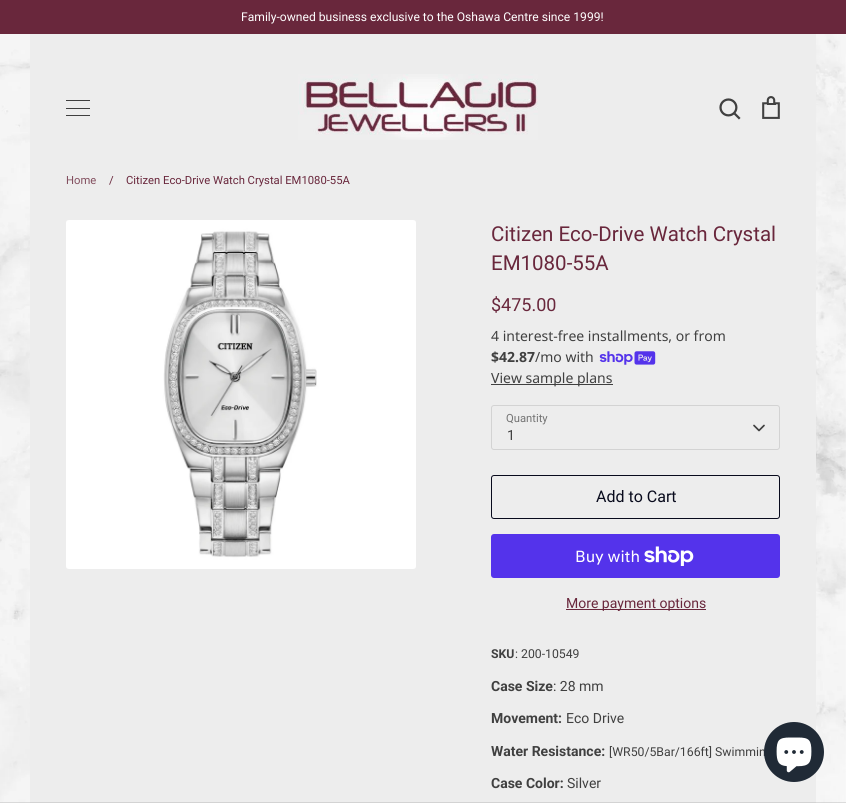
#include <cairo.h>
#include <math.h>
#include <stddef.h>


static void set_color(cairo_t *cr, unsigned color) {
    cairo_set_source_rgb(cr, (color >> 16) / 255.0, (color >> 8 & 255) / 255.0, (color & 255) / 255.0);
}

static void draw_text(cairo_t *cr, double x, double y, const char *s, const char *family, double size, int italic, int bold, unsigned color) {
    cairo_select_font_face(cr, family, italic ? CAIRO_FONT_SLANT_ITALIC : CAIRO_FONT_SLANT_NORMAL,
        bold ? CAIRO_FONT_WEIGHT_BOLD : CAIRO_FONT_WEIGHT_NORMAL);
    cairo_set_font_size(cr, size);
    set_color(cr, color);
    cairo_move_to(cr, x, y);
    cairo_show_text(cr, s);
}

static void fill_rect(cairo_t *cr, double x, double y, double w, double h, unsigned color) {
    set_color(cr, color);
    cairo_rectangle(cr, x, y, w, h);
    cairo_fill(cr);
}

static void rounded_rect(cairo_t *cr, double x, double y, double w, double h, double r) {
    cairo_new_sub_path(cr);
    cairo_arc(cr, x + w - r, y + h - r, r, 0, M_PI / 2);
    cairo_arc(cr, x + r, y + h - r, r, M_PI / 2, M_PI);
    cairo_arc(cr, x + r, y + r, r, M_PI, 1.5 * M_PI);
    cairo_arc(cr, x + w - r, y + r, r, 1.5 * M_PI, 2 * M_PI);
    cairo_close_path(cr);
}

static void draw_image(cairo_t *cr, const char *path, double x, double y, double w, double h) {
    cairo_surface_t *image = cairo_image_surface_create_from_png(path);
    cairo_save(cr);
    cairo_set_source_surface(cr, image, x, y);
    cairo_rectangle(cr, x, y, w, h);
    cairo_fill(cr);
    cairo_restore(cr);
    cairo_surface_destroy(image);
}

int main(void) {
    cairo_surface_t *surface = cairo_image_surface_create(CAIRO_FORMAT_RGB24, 846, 803);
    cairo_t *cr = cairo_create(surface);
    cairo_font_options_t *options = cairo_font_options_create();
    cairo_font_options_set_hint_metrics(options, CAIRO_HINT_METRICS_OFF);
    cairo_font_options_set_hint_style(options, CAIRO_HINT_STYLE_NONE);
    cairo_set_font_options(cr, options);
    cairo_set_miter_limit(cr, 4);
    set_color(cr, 0xFFFFFF);
    cairo_paint(cr);
    draw_image(cr, "assets/img1.png", 0, 34, 846, 769);
    fill_rect(cr, 30, 34, 786, 769, 0xEDEDED);
    fill_rect(cr, 0, 0, 846, 34, 0x69273C);
    draw_text(cr, 241, 21, "Family-owned business exclusive to the Oshawa Centre since 1999!", "Roboto", 12.1, 0, 0, 0xFFFFFF);
    fill_rect(cr, 66, 100, 24, 1, 0x404040);
    fill_rect(cr, 66, 108, 24, 1, 0x404040);
    fill_rect(cr, 66, 115, 24, 1, 0x404040);
    draw_image(cr, "assets/img2.png", 298, 74, 240, 66);
    draw_image(cr, "assets/img3.png", 719, 98, 22, 22);
    draw_image(cr, "assets/img4.png", 762, 96, 18, 23);
    cairo_set_source_rgba(cr, 0.251, 0.251, 0.251, 0.15);
    cairo_rectangle(cr, 0, 802, 846, 1);
    cairo_fill(cr);
    draw_text(cr, 66, 184, "Home", "Roboto", 11.25, 0, 0, 0x834F5F);
    draw_text(cr, 109, 184, "/", "Roboto", 11.25, 0, 0, 0x69273C);
    draw_text(cr, 126, 184, "Citizen Eco-Drive Watch Crystal EM1080-55A", "Roboto", 11.25, 0, 0, 0x69273C);
    draw_image(cr, "assets/img5.png", 66, 220, 350, 349);
    draw_text(cr, 491, 241, "Citizen Eco-Drive Watch Crystal", "Roboto", 20.5, 0, 0, 0x69273C);
    draw_text(cr, 491, 270, "EM1080-55A", "Roboto", 20.5, 0, 0, 0x69273C);
    draw_text(cr, 491, 311, "$475.00", "Roboto", 18, 0, 0, 0x69273C);
    draw_text(cr, 491, 341, "4 interest-free installments, or from", "Noto Sans", 14, 0, 0, 0x404040);
    draw_text(cr, 491, 362, "$42.87", "Noto Sans", 14, 0, 1, 0x404040);
    draw_text(cr, 535, 362, "/mo with", "Noto Sans", 14, 0, 0, 0x404040);
    draw_image(cr, "assets/img6.png", 599, 351, 57, 14);
    fill_rect(cr, 491, 384, 122, 1, 0x404040);
    draw_text(cr, 491, 383, "View sample plans", "Noto Sans", 14, 0, 0, 0x404040);
    draw_text(cr, 506, 422, "Quantity", "Roboto", 11.25, 0, 0, 0x747474);
    rounded_rect(cr, 491.5, 405.5, 288, 44, 2.5);
    set_color(cr, 0xD3D3D3);
    cairo_set_line_width(cr, 1);
    cairo_stroke(cr);
    cairo_new_path(cr);
    cairo_move_to(cr, 754, 425.5);
    cairo_line_to(cr, 759, 430.5);
    cairo_line_to(cr, 764, 425.5);
    set_color(cr, 0x404040);
    cairo_set_line_width(cr, 1.7);
    cairo_set_line_cap(cr, CAIRO_LINE_CAP_ROUND);
    cairo_set_line_join(cr, CAIRO_LINE_JOIN_ROUND);
    cairo_stroke(cr);
    draw_text(cr, 507, 440, "1", "Roboto", 14, 0, 0, 0x404040);
    rounded_rect(cr, 491.5, 475.5, 288, 43, 2.5);
    set_color(cr, 0x080A1C);
    cairo_set_line_width(cr, 1);
    cairo_set_line_cap(cr, CAIRO_LINE_CAP_BUTT);
    cairo_set_line_join(cr, CAIRO_LINE_JOIN_MITER);
    cairo_stroke(cr);
    draw_text(cr, 596, 502, "Add to Cart", "Roboto", 16, 0, 0, 0x080A1C);
    set_color(cr, 0x5433EB);
    rounded_rect(cr, 491, 534, 289, 44, 3);
    cairo_fill(cr);
    draw_text(cr, 575, 562, "Buy with", "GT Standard", 16, 0, 0, 0xFFFFFF);
    draw_image(cr, "assets/img7.png", 644, 546, 50, 20);
    fill_rect(cr, 566, 609, 140, 1, 0x69273C);
    draw_text(cr, 566, 608, "More payment options", "Roboto", 14, 0, 0, 0x69273C);
    draw_text(cr, 491, 658, "SKU", "Roboto", 12.25, 0, 1, 0x404040);
    draw_text(cr, 515, 658, ": 200-10549", "Roboto", 12.25, 0, 0, 0x404040);
    draw_text(cr, 491, 691, "Case Size", "Roboto", 14, 0, 1, 0x404040);
    draw_text(cr, 553, 691, ": 28 mm", "Roboto", 14, 0, 0, 0x404040);
    draw_text(cr, 491, 723, "Movement:", "Roboto", 14, 0, 1, 0x404040);
    draw_text(cr, 566, 723, "Eco Drive", "Roboto", 14, 0, 0, 0x404040);
    draw_text(cr, 491, 756, "Water Resistance:", "Roboto", 14, 0, 1, 0x404040);
    draw_text(cr, 609, 756, "[WR50/5Bar/166ft] Swimmin", "Roboto", 12.25, 0, 0, 0x404040);
    draw_text(cr, 491, 788, "Case Color:", "Roboto", 14, 0, 1, 0x404040);
    draw_text(cr, 567, 788, "Silver", "Roboto", 14, 0, 0, 0x404040);
    set_color(cr, 0x202A36);
    cairo_new_path(cr);
    cairo_arc(cr, 794, 752, 30, 0, 2 * M_PI);
    cairo_fill(cr);
    draw_image(cr, "assets/img8.png", 776, 737, 36, 36);
    cairo_surface_write_to_png(surface, "output.png");
    cairo_font_options_destroy(options);
    cairo_destroy(cr);
    cairo_surface_destroy(surface);
    return 0;
}
